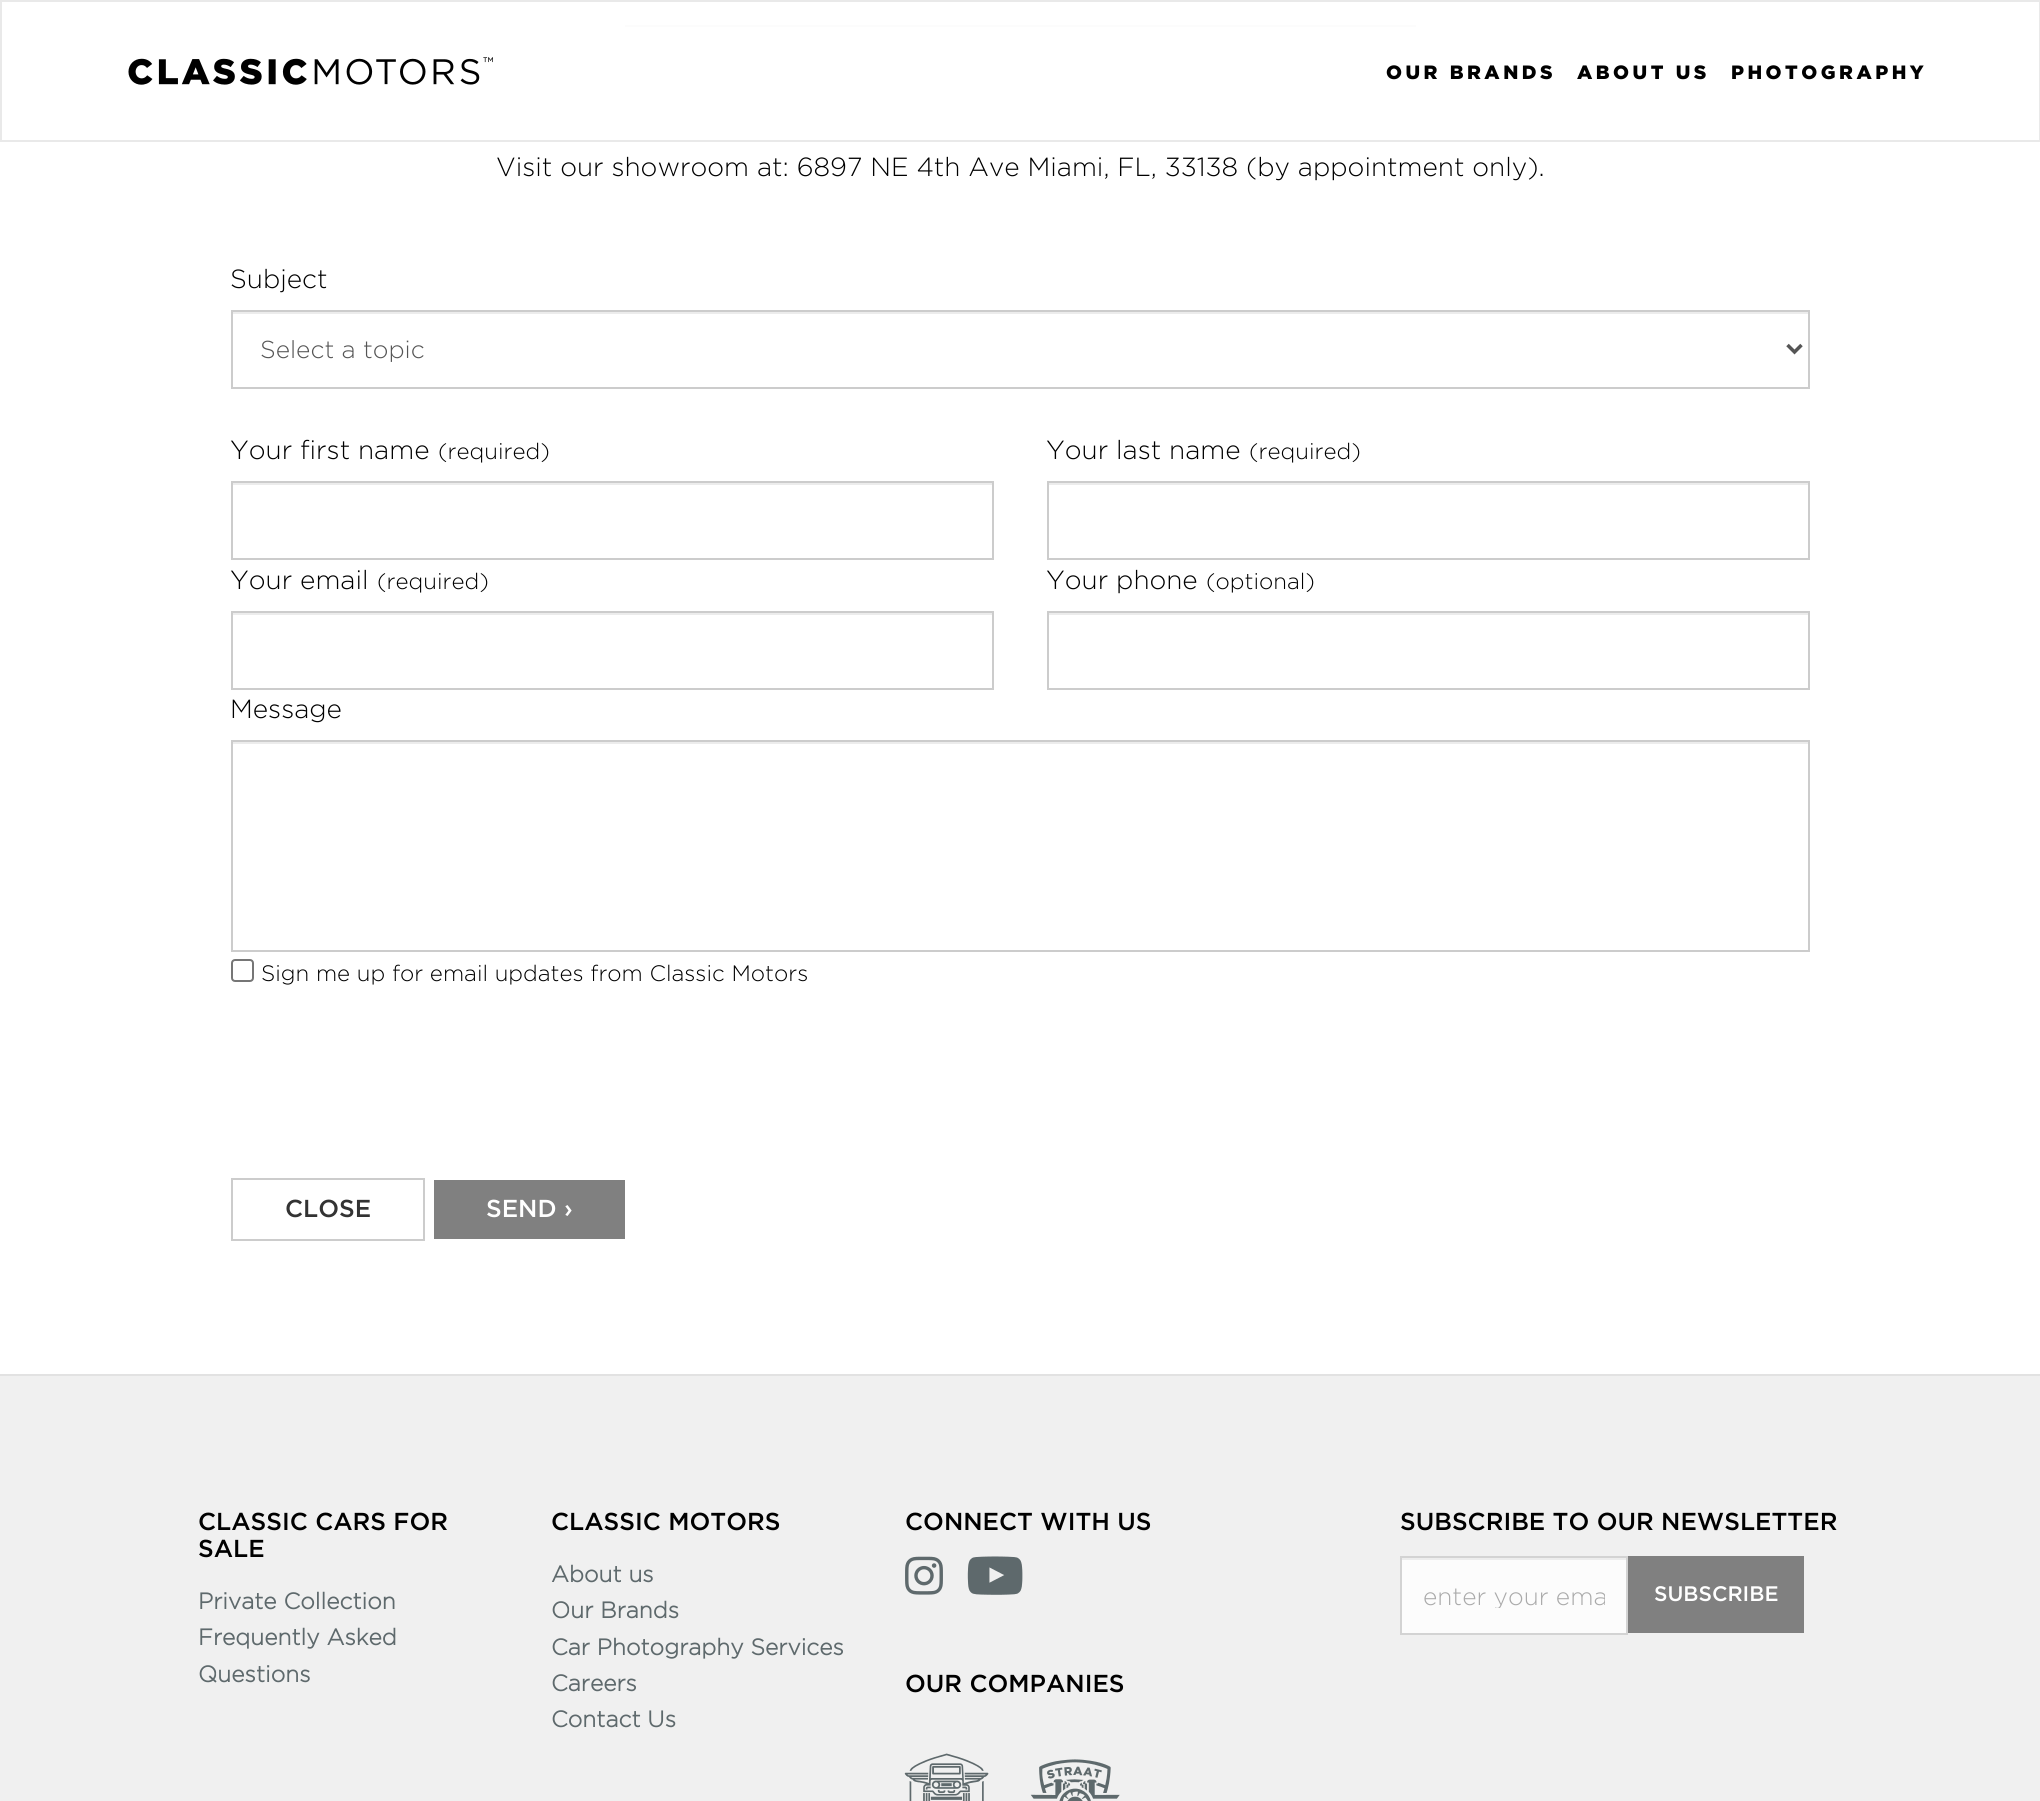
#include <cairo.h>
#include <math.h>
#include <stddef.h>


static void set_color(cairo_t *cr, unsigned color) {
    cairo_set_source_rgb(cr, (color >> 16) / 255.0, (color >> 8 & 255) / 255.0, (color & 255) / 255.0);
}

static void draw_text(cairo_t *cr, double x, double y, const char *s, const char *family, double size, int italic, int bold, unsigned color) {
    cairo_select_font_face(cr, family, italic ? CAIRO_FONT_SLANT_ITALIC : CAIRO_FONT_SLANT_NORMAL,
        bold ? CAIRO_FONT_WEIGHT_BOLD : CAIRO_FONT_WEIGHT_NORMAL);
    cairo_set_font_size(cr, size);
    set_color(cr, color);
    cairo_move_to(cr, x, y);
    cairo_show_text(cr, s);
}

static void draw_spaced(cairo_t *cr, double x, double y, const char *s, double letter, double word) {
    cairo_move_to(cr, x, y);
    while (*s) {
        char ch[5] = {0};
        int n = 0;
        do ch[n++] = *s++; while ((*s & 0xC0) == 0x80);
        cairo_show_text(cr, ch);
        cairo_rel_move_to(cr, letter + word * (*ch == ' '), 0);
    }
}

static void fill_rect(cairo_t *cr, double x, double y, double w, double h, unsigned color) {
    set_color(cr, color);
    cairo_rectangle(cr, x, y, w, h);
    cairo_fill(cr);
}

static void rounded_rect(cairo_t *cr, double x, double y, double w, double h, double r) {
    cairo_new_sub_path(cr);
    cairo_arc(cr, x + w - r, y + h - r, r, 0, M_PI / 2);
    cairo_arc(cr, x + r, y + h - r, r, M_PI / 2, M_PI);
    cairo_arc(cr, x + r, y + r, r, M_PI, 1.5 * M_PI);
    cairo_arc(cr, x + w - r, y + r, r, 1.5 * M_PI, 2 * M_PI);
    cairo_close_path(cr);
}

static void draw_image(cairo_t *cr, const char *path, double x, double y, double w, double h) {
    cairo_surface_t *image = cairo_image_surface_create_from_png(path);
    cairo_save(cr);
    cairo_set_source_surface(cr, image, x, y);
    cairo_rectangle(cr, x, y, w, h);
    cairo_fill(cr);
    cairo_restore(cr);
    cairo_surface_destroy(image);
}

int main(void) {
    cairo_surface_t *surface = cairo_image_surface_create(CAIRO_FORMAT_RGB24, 2040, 1801);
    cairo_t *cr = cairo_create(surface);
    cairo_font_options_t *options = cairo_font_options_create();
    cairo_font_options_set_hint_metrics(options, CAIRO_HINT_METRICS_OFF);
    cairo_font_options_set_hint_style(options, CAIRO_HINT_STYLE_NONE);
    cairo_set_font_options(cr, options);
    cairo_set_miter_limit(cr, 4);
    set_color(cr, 0xF0F0F0);
    cairo_paint(cr);
    fill_rect(cr, 2, 2, 2037, 138, 0xFFFFFF);
    fill_rect(cr, 625, 25, 791, 2, 0xFCFCFC);
    cairo_rectangle(cr, 1, 1, 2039, 140);
    set_color(cr, 0xE9E9E9);
    cairo_stroke(cr);
    draw_image(cr, "assets/img1.png", 128, 57, 365, 28);
    cairo_select_font_face(cr, "Gotham Black", CAIRO_FONT_SLANT_NORMAL, CAIRO_FONT_WEIGHT_NORMAL);
    cairo_set_font_size(cr, 19.25);
    set_color(cr, 0x000000);
    draw_spaced(cr, 1386, 79, "OUR BRANDS", 3.5, 0);
    draw_spaced(cr, 1577, 79, "ABOUT US", 3.5, 0);
    draw_spaced(cr, 1731, 79, "PHOTOGRAPHY", 3.5, 0);
    fill_rect(cr, 0, 142, 2040, 1232, 0xFFFFFF);
    draw_text(cr, 496, 176, "Visit our showroom at: 6897 NE 4th Ave Miami, FL, 33138 (by appointment only).", "Gotham Light", 26.25, 0, 0, 0x000000);
    draw_text(cr, 230, 288, "Subject", "Gotham Light", 26.25, 0, 0, 0x000000);
    fill_rect(cr, 233, 312, 1575, 2, 0xECECEC);
    cairo_rectangle(cr, 232, 311, 1577, 77);
    set_color(cr, 0xCCCCCC);
    cairo_stroke(cr);
    cairo_new_path(cr);
    cairo_move_to(cr, 1787.5, 345);
    cairo_line_to(cr, 1794.5, 352);
    cairo_line_to(cr, 1801.5, 345);
    set_color(cr, 0x555555);
    cairo_set_line_width(cr, 3.5);
    cairo_stroke(cr);
    draw_text(cr, 260, 358, "Select a topic", "Gotham Light", 24.5, 0, 0, 0x555555);
    draw_text(cr, 230, 459, "Your first name", "Gotham Light", 26.25, 0, 0, 0x000000);
    draw_text(cr, 438, 459, "(required)", "Gotham Light", 22.3, 0, 0, 0x000000);
    fill_rect(cr, 233, 483, 759, 2, 0xECECEC);
    cairo_rectangle(cr, 232, 482, 761, 77);
    set_color(cr, 0xCCCCCC);
    cairo_set_line_width(cr, 2);
    cairo_stroke(cr);
    draw_text(cr, 1046, 459, "Your last name", "Gotham Light", 26.25, 0, 0, 0x000000);
    draw_text(cr, 1249, 459, "(required)", "Gotham Light", 22.3, 0, 0, 0x000000);
    fill_rect(cr, 1048, 483, 760, 2, 0xECECEC);
    cairo_rectangle(cr, 1048, 482, 761, 77);
    set_color(cr, 0xCCCCCC);
    cairo_stroke(cr);
    draw_text(cr, 230, 589, "Your email", "Gotham Light", 26.25, 0, 0, 0x000000);
    draw_text(cr, 377, 589, "(required)", "Gotham Light", 22.3, 0, 0, 0x000000);
    fill_rect(cr, 233, 613, 759, 2, 0xECECEC);
    cairo_rectangle(cr, 232, 612, 761, 77);
    set_color(cr, 0xCCCCCC);
    cairo_stroke(cr);
    draw_text(cr, 1046, 589, "Your phone", "Gotham Light", 26.25, 0, 0, 0x000000);
    draw_text(cr, 1206, 589, "(optional)", "Gotham Light", 22.3, 0, 0, 0x000000);
    fill_rect(cr, 1048, 613, 760, 2, 0xECECEC);
    cairo_rectangle(cr, 1048, 612, 761, 77);
    set_color(cr, 0xCCCCCC);
    cairo_stroke(cr);
    draw_text(cr, 230, 718, "Message", "Gotham Light", 26.25, 0, 0, 0x000000);
    fill_rect(cr, 233, 742, 1575, 2, 0xECECEC);
    cairo_rectangle(cr, 232, 741, 1577, 210);
    set_color(cr, 0xCCCCCC);
    cairo_stroke(cr);
    rounded_rect(cr, 232, 960, 21, 21, 3);
    set_color(cr, 0x767676);
    cairo_stroke(cr);
    draw_text(cr, 261, 981, "Sign me up for email updates from Classic Motors", "Gotham Light", 22.3, 0, 0, 0x000000);
    cairo_rectangle(cr, 232, 1179, 192, 61);
    set_color(cr, 0xCCCCCC);
    cairo_stroke(cr);
    draw_text(cr, 285, 1217, "CLOSE", "Gotham Medium", 24.5, 0, 0, 0x333333);
    fill_rect(cr, 434, 1180, 191, 59, 0x808080);
    draw_text(cr, 486, 1217, "SEND ›", "Gotham Medium", 24.5, 0, 0, 0xFFFFFF);
    fill_rect(cr, 0, 1374, 2040, 2, 0xE2E2E2);
    draw_text(cr, 198, 1530, "CLASSIC CARS FOR", "Gotham Medium", 24.5, 0, 0, 0x000000);
    draw_text(cr, 198, 1557, "SALE", "Gotham Medium", 24.5, 0, 0, 0x000000);
    draw_text(cr, 198, 1609, "Private Collection", "Gotham", 22.75, 0, 1, 0x5E696C);
    draw_text(cr, 198, 1645, "Frequently Asked", "Gotham", 22.75, 0, 1, 0x5E696C);
    draw_text(cr, 198, 1682, "Questions", "Gotham", 22.75, 0, 1, 0x5E696C);
    draw_text(cr, 551, 1530, "CLASSIC MOTORS", "Gotham Medium", 24.5, 0, 0, 0x000000);
    draw_text(cr, 551, 1582, "About us", "Gotham", 22.75, 0, 1, 0x5E696C);
    draw_text(cr, 551, 1618, "Our Brands", "Gotham", 22.75, 0, 1, 0x5E696C);
    draw_text(cr, 551, 1655, "Car Photography Services", "Gotham", 22.75, 0, 1, 0x5E696C);
    draw_text(cr, 551, 1691, "Careers", "Gotham", 22.75, 0, 1, 0x5E696C);
    draw_text(cr, 551, 1727, "Contact Us", "Gotham", 22.75, 0, 1, 0x5E696C);
    draw_text(cr, 905, 1530, "CONNECT WITH US", "Gotham Medium", 24.5, 0, 0, 0x000000);
    draw_image(cr, "assets/img2.png", 905, 1556, 38, 39);
    draw_image(cr, "assets/img3.png", 967, 1556, 56, 39);
    draw_text(cr, 905, 1692, "OUR COMPANIES", "Gotham Medium", 24.5, 0, 0, 0x000000);
    draw_image(cr, "assets/img4.png", 904, 1753, 85, 48);
    draw_image(cr, "assets/img5.png", 1030, 1759, 90, 42);
    draw_text(cr, 1400, 1530, "SUBSCRIBE TO OUR NEWSLETTER", "Gotham Medium", 24.5, 0, 0, 0x000000);
    fill_rect(cr, 1402, 1560, 224, 73, 0xFCFCFC);
    fill_rect(cr, 1402, 1558, 224, 2, 0xEDEDED);
    cairo_rectangle(cr, 1401, 1557, 226, 77);
    set_color(cr, 0xD3D3D3);
    cairo_stroke(cr);
    cairo_save(cr);
    cairo_rectangle(cr, 1423, 1582, 182, 26);
    cairo_clip(cr);
    draw_text(cr, 1423, 1605, "enter your ema", "Gotham Light", 24.5, 0, 0, 0xAAAAAA);
    cairo_restore(cr);
    fill_rect(cr, 1628, 1556, 176, 77, 0x808080);
    draw_text(cr, 1654, 1601, "SUBSCRIBE", "Gotham Medium", 21, 0, 0, 0xFFFFFF);
    cairo_surface_write_to_png(surface, "output.png");
    cairo_font_options_destroy(options);
    cairo_destroy(cr);
    cairo_surface_destroy(surface);
    return 0;
}
